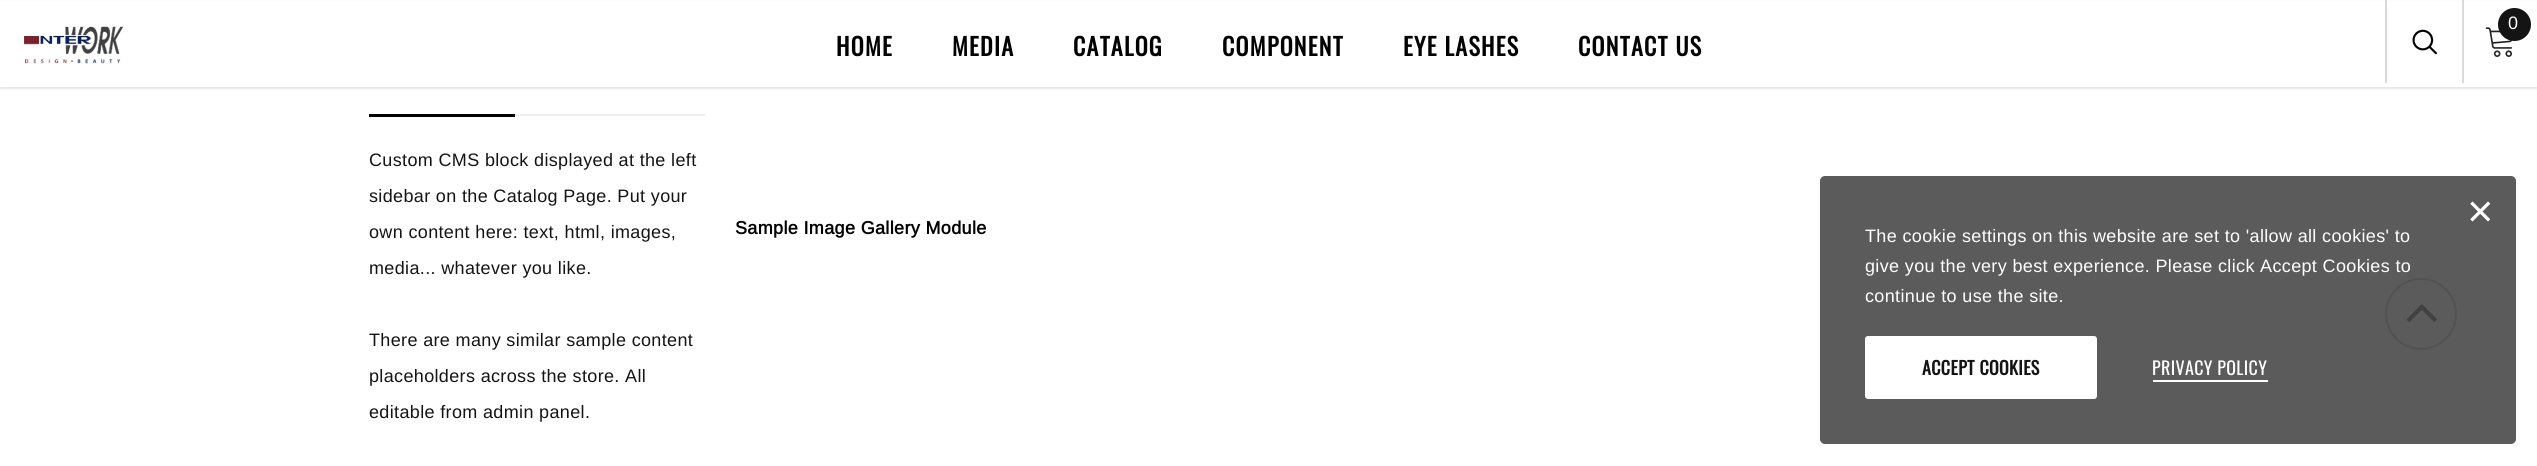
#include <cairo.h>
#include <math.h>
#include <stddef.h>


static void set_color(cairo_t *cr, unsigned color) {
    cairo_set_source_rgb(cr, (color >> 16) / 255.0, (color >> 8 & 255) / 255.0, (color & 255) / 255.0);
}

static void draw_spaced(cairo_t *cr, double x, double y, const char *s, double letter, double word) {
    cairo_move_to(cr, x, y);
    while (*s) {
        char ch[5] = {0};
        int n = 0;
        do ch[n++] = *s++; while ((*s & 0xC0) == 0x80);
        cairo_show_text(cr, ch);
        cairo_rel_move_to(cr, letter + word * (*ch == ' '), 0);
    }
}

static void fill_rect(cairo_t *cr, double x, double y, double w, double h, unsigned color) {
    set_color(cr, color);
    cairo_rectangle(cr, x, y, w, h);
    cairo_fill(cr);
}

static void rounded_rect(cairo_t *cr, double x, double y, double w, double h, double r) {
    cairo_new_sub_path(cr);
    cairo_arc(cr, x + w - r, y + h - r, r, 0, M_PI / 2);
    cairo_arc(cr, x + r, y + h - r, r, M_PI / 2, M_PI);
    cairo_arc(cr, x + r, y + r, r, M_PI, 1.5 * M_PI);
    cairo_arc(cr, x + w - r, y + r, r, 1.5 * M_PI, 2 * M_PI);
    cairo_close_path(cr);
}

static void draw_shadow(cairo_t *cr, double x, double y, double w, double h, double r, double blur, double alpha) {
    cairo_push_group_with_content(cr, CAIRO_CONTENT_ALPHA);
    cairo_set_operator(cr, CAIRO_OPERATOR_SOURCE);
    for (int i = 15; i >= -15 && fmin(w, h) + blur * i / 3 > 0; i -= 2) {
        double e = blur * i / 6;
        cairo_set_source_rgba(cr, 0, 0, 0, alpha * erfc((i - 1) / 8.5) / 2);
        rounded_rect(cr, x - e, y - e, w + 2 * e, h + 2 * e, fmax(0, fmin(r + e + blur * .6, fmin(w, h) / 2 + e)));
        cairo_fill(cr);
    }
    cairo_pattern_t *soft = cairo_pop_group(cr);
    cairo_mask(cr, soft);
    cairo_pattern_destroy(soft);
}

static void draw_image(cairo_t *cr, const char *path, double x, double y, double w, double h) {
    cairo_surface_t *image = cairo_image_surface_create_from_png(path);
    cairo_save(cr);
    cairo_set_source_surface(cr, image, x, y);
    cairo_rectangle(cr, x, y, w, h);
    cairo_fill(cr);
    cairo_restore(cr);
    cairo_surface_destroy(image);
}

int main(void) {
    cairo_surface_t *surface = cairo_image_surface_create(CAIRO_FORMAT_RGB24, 2537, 466);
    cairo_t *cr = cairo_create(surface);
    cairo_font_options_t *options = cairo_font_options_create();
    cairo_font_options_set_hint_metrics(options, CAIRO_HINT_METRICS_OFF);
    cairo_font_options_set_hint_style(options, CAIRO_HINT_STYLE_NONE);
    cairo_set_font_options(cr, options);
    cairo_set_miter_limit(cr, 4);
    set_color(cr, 0xFFFFFF);
    cairo_paint(cr);
    set_color(cr, 0x000000);
    draw_shadow(cr, 0, 2, 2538, 87, 0, 1, 0.1);
    fill_rect(cr, 0, 1, 2537, 86, 0xFFFFFF);
    draw_image(cr, "assets/img1.png", 2485, 27, 28, 30);
    set_color(cr, 0x141414);
    cairo_arc(cr, 2514.5, 24.5, 16.5, 0, 2 * M_PI);
    cairo_fill(cr);
    cairo_select_font_face(cr, "Arimo", CAIRO_FONT_SLANT_NORMAL, CAIRO_FONT_WEIGHT_NORMAL);
    cairo_set_font_size(cr, 18);
    set_color(cr, 0xFFFFFF);
    draw_spaced(cr, 2508, 29, "0", 0.35, 0);
    draw_image(cr, "assets/img2.png", 23, 26, 101, 38);
    cairo_select_font_face(cr, "Oswald", CAIRO_FONT_SLANT_NORMAL, CAIRO_FONT_WEIGHT_BOLD);
    cairo_set_font_size(cr, 24);
    set_color(cr, 0x000000);
    draw_spaced(cr, 836, 56, "HOME", 1.25, 0);
    draw_spaced(cr, 952, 56, "MEDIA", 1.25, 0);
    draw_spaced(cr, 1073, 56, "CATALOG", 1.25, 0);
    draw_spaced(cr, 1222, 56, "COMPONENT", 1.25, 0);
    draw_spaced(cr, 1403, 56, "EYE LASHES", 1.25, 0);
    draw_spaced(cr, 1578, 56, "CONTACT US", 1.25, 0);
    fill_rect(cr, 2385, 0, 2, 83, 0xD9D9D9);
    draw_image(cr, "assets/img3.png", 2412, 29, 25, 26);
    fill_rect(cr, 2462, 0, 2, 83, 0xD9D9D9);
    fill_rect(cr, 515, 114, 190, 2, 0xEFEFEF);
    fill_rect(cr, 369, 114, 146, 3, 0x000000);
    cairo_select_font_face(cr, "Arimo", CAIRO_FONT_SLANT_NORMAL, CAIRO_FONT_WEIGHT_NORMAL);
    cairo_set_font_size(cr, 18);
    set_color(cr, 0x141414);
    draw_spaced(cr, 369, 166, "Custom CMS block displayed at the left", 0.35, 0);
    draw_spaced(cr, 369, 202, "sidebar on the Catalog Page. Put your", 0.35, 0);
    draw_spaced(cr, 369, 238, "own content here: text, html, images,", 0.35, 0);
    draw_spaced(cr, 369, 274, "media... whatever you like.", 0.35, 0);
    draw_spaced(cr, 369, 346, "There are many similar sample content", 0.35, 0);
    draw_spaced(cr, 369, 382, "placeholders across the store. All", 0.35, 0);
    draw_spaced(cr, 369, 418, "editable from admin panel.", 0.35, 0);
    cairo_select_font_face(cr, "Arimo", CAIRO_FONT_SLANT_NORMAL, CAIRO_FONT_WEIGHT_BOLD);
    set_color(cr, 0x000000);
    draw_spaced(cr, 735, 234, "Sample Image Gallery Module", 0.35, 0);
    cairo_new_path(cr);
    cairo_arc(cr, 2421, 314, 35, 0, 2 * M_PI);
    set_color(cr, 0xD4D4D4);
    cairo_stroke(cr);
    draw_image(cr, "assets/img5.png", 2406, 304, 31, 18);
    cairo_set_source_rgba(cr, 0.196, 0.196, 0.196, 0.8);
    rounded_rect(cr, 1820, 176, 696, 268, 5);
    cairo_fill(cr);
    draw_image(cr, "assets/img4.png", 2470, 201, 21, 21);
    cairo_select_font_face(cr, "Arimo", CAIRO_FONT_SLANT_NORMAL, CAIRO_FONT_WEIGHT_NORMAL);
    set_color(cr, 0xFFFFFF);
    draw_spaced(cr, 1865, 242, "The cookie settings on this website are set to 'allow all cookies' to", 0.35, 0);
    draw_spaced(cr, 1865, 272, "give you the very best experience. Please click Accept Cookies to", 0.35, 0);
    draw_spaced(cr, 1865, 302, "continue to use the site.", 0.35, 0);
    rounded_rect(cr, 1866, 337, 230, 61, 2);
    cairo_fill_preserve(cr);
    cairo_stroke(cr);
    cairo_select_font_face(cr, "Oswald", CAIRO_FONT_SLANT_NORMAL, CAIRO_FONT_WEIGHT_BOLD);
    set_color(cr, 0x141414);
    draw_spaced(cr, 1922, 375, "ACCEPT COOKIES", 0.35, 0);
    cairo_select_font_face(cr, "Oswald", CAIRO_FONT_SLANT_NORMAL, CAIRO_FONT_WEIGHT_NORMAL);
    set_color(cr, 0xFFFFFF);
    draw_spaced(cr, 2152, 375, "PRIVACY POLICY", 0.35, 0);
    fill_rect(cr, 2153, 380, 115, 2, 0xFFFFFF);
    cairo_surface_write_to_png(surface, "output.png");
    cairo_font_options_destroy(options);
    cairo_destroy(cr);
    cairo_surface_destroy(surface);
    return 0;
}
